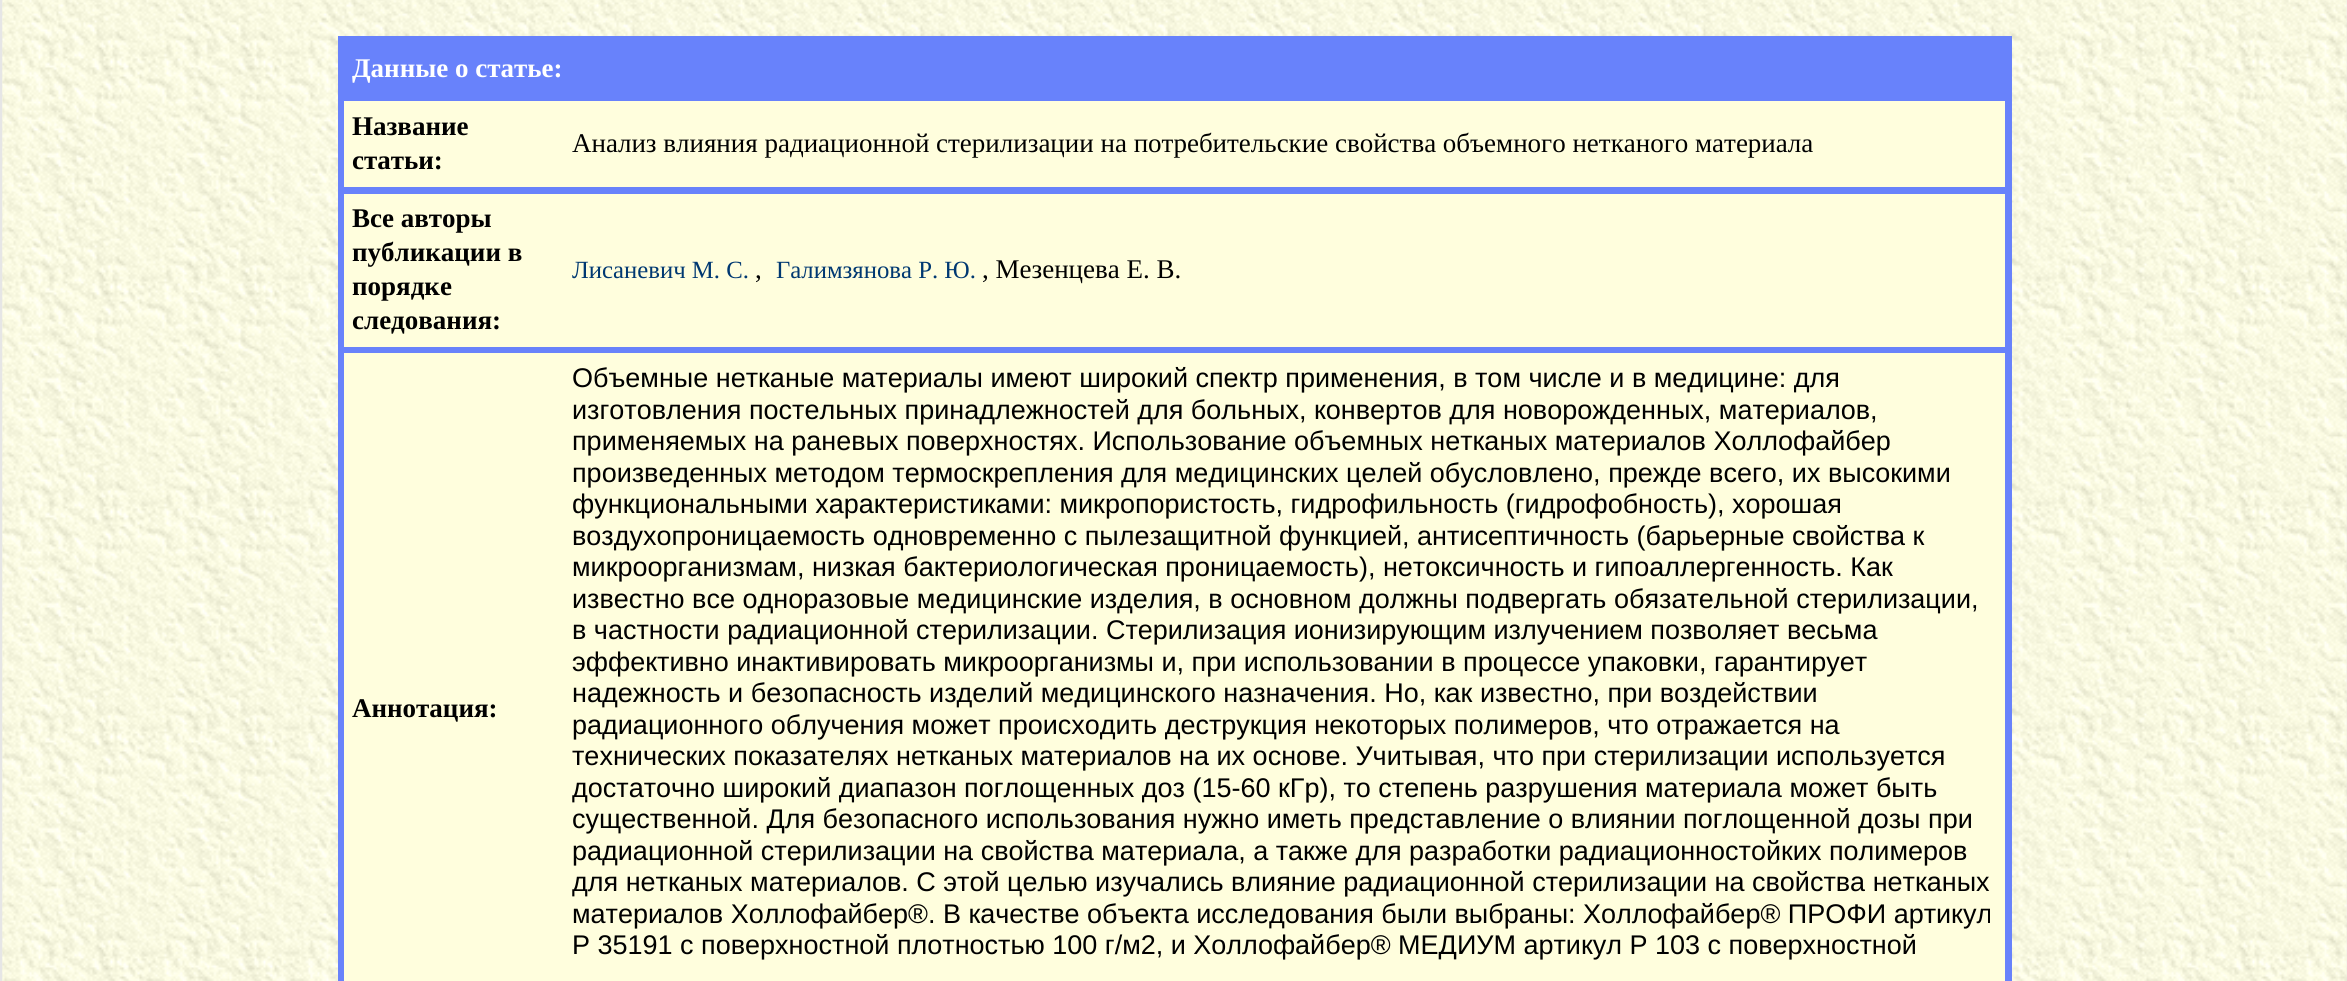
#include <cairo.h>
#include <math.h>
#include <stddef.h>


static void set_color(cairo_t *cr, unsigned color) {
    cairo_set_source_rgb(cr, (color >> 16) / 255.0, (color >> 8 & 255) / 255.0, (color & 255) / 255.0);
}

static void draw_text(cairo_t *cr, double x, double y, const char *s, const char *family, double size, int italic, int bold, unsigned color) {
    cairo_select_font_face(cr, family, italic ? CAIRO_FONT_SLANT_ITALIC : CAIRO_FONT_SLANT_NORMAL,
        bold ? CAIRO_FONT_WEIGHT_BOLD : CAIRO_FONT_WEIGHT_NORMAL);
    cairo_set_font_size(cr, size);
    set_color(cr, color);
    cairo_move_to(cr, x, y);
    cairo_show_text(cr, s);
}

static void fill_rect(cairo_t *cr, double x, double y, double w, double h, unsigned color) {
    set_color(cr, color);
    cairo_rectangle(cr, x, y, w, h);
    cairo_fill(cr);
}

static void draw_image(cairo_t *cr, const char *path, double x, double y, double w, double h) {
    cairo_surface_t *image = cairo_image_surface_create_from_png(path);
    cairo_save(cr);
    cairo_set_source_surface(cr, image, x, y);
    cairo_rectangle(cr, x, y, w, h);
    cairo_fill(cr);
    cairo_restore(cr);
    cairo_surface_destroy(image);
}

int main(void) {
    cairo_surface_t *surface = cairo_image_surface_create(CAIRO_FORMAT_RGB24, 2347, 981);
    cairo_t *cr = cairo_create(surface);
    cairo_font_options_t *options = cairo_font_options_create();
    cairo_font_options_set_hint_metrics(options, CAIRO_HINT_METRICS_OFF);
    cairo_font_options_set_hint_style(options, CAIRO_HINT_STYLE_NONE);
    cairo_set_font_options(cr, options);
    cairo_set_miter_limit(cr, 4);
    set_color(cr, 0xE6E6E6);
    cairo_paint(cr);
    draw_image(cr, "assets/img1.png", 2, 0, 2345, 981);
    fill_rect(cr, 338, 36, 1674, 945, 0x6882FB);
    draw_text(cr, 352, 77, "Данные о статье:", "Liberation Serif", 27, 0, 1, 0xFFFFFF);
    fill_rect(cr, 344, 101, 1661, 86, 0xFFFEDD);
    draw_text(cr, 352, 135, "Название", "Liberation Serif", 27, 0, 1, 0x000000);
    draw_text(cr, 352, 169, "статьи:", "Liberation Serif", 27, 0, 1, 0x000000);
    draw_text(cr, 572, 152, "Анализ влияния радиационной стерилизации на потребительские свойства объемного нетканого материала", "Liberation Serif", 27, 0, 0, 0x000000);
    fill_rect(cr, 344, 194, 1661, 153, 0xFFFEDD);
    draw_text(cr, 352, 227, "Все авторы", "Liberation Serif", 27, 0, 1, 0x000000);
    draw_text(cr, 352, 261, "публикации в", "Liberation Serif", 27, 0, 1, 0x000000);
    draw_text(cr, 352, 295, "порядке", "Liberation Serif", 27, 0, 1, 0x000000);
    draw_text(cr, 352, 329, "следования:", "Liberation Serif", 27, 0, 1, 0x000000);
    draw_text(cr, 572, 278, "Лисаневич М. С.", "Liberation Serif", 24.75, 0, 0, 0x003871);
    draw_text(cr, 755, 278, ",", "Liberation Serif", 27, 0, 0, 0x000000);
    draw_text(cr, 776, 278, "Галимзянова Р. Ю.", "Liberation Serif", 24.75, 0, 0, 0x003871);
    draw_text(cr, 982, 278, ", Мезенцева Е. В.", "Liberation Serif", 27, 0, 0, 0x000000);
    fill_rect(cr, 344, 353, 1661, 628, 0xFFFEDD);
    draw_text(cr, 352, 717, "Аннотация:", "Liberation Serif", 27, 0, 1, 0x000000);
    draw_text(cr, 572, 387, "Объемные нетканые материалы имеют широкий спектр применения, в том числе и в медицине: для", "Liberation Sans", 27, 0, 0, 0x000000);
    draw_text(cr, 572, 419, "изготовления постельных принадлежностей для больных, конвертов для новорожденных, материалов,", "Liberation Sans", 27, 0, 0, 0x000000);
    draw_text(cr, 572, 450, "применяемых на раневых поверхностях. Использование объемных нетканых материалов Холлофайбер", "Liberation Sans", 27, 0, 0, 0x000000);
    draw_text(cr, 572, 482, "произведенных методом термоскрепления для медицинских целей обусловлено, прежде всего, их высокими", "Liberation Sans", 27, 0, 0, 0x000000);
    draw_text(cr, 572, 513, "функциональными характеристиками: микропористость, гидрофильность (гидрофобность), хорошая", "Liberation Sans", 27, 0, 0, 0x000000);
    draw_text(cr, 572, 545, "воздухопроницаемость одновременно с пылезащитной функцией, антисептичность (барьерные свойства к", "Liberation Sans", 27, 0, 0, 0x000000);
    draw_text(cr, 572, 576, "микроорганизмам, низкая бактериологическая проницаемость), нетоксичность и гипоаллергенность. Как", "Liberation Sans", 27, 0, 0, 0x000000);
    draw_text(cr, 572, 608, "известно все одноразовые медицинские изделия, в основном должны подвергать обязательной стерилизации,", "Liberation Sans", 27, 0, 0, 0x000000);
    draw_text(cr, 572, 639, "в частности радиационной стерилизации. Стерилизация ионизирующим излучением позволяет весьма", "Liberation Sans", 27, 0, 0, 0x000000);
    draw_text(cr, 572, 671, "эффективно инактивировать микроорганизмы и, при использовании в процессе упаковки, гарантирует", "Liberation Sans", 27, 0, 0, 0x000000);
    draw_text(cr, 572, 702, "надежность и безопасность изделий медицинского назначения. Но, как известно, при воздействии", "Liberation Sans", 27, 0, 0, 0x000000);
    draw_text(cr, 572, 734, "радиационного облучения может происходить деструкция некоторых полимеров, что отражается на", "Liberation Sans", 27, 0, 0, 0x000000);
    draw_text(cr, 572, 765, "технических показателях нетканых материалов на их основе. Учитывая, что при стерилизации используется", "Liberation Sans", 27, 0, 0, 0x000000);
    draw_text(cr, 572, 797, "достаточно широкий диапазон поглощенных доз (15-60 кГр), то степень разрушения материала может быть", "Liberation Sans", 27, 0, 0, 0x000000);
    draw_text(cr, 572, 828, "существенной. Для безопасного использования нужно иметь представление о влиянии поглощенной дозы при", "Liberation Sans", 27, 0, 0, 0x000000);
    draw_text(cr, 572, 860, "радиационной стерилизации на свойства материала, а также для разработки радиационностойких полимеров", "Liberation Sans", 27, 0, 0, 0x000000);
    draw_text(cr, 572, 891, "для нетканых материалов. С этой целью изучались влияние радиационной стерилизации на свойства нетканых", "Liberation Sans", 27, 0, 0, 0x000000);
    draw_text(cr, 572, 923, "материалов Холлофайбер®. В качестве объекта исследования были выбраны: Холлофайбер® ПРОФИ артикул", "Liberation Sans", 27, 0, 0, 0x000000);
    draw_text(cr, 572, 954, "Р 35191 с поверхностной плотностью 100 г/м2, и Холлофайбер® МЕДИУМ артикул Р 103 с поверхностной", "Liberation Sans", 27, 0, 0, 0x000000);
    cairo_surface_write_to_png(surface, "output.png");
    cairo_font_options_destroy(options);
    cairo_destroy(cr);
    cairo_surface_destroy(surface);
    return 0;
}
